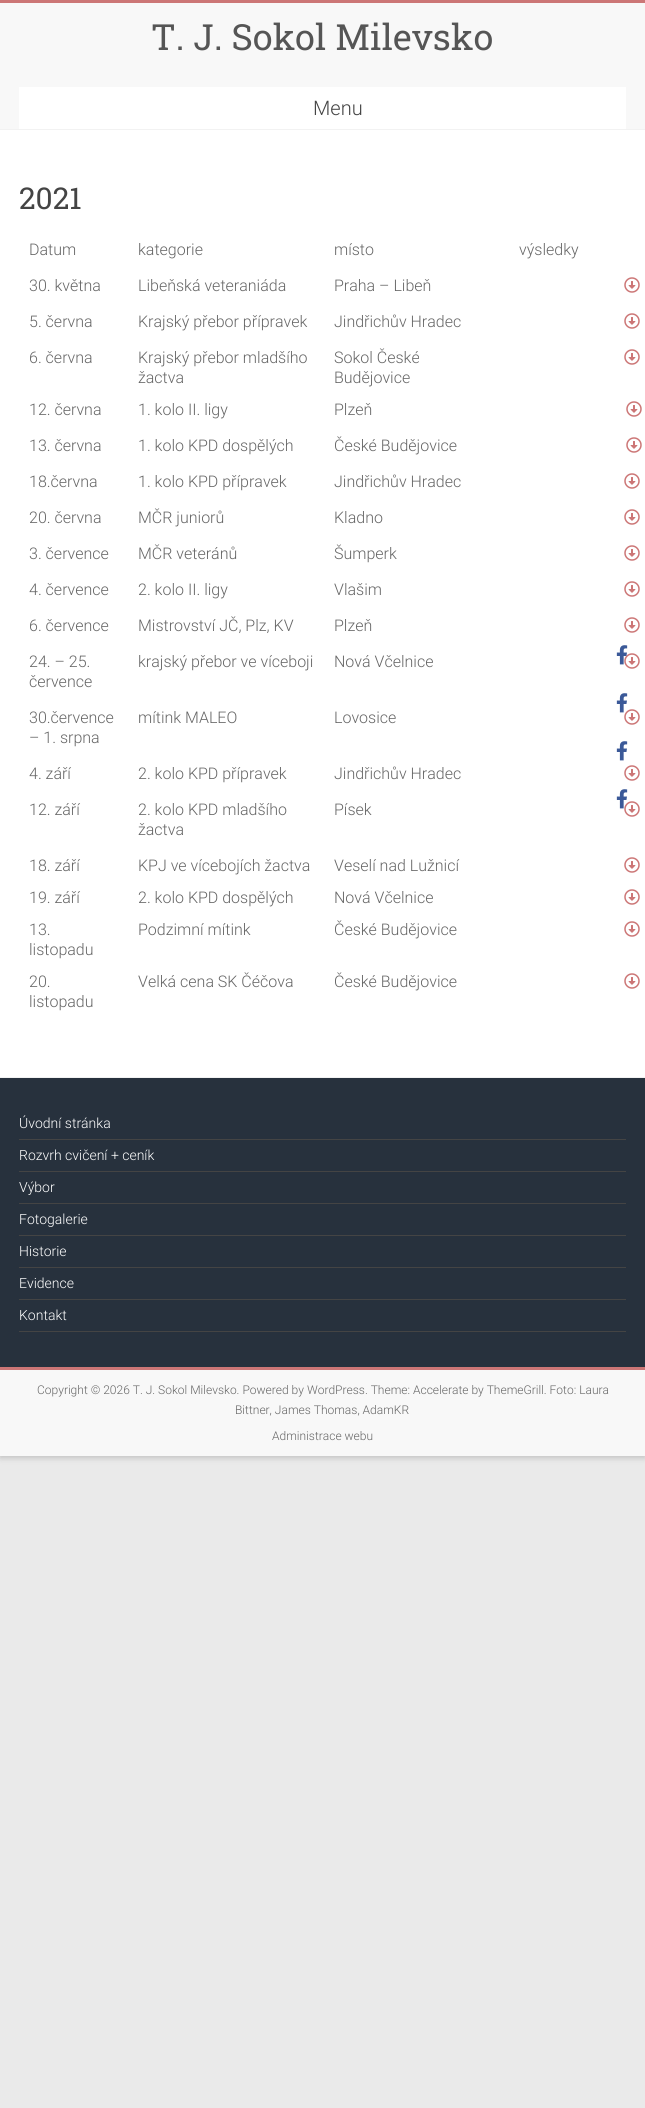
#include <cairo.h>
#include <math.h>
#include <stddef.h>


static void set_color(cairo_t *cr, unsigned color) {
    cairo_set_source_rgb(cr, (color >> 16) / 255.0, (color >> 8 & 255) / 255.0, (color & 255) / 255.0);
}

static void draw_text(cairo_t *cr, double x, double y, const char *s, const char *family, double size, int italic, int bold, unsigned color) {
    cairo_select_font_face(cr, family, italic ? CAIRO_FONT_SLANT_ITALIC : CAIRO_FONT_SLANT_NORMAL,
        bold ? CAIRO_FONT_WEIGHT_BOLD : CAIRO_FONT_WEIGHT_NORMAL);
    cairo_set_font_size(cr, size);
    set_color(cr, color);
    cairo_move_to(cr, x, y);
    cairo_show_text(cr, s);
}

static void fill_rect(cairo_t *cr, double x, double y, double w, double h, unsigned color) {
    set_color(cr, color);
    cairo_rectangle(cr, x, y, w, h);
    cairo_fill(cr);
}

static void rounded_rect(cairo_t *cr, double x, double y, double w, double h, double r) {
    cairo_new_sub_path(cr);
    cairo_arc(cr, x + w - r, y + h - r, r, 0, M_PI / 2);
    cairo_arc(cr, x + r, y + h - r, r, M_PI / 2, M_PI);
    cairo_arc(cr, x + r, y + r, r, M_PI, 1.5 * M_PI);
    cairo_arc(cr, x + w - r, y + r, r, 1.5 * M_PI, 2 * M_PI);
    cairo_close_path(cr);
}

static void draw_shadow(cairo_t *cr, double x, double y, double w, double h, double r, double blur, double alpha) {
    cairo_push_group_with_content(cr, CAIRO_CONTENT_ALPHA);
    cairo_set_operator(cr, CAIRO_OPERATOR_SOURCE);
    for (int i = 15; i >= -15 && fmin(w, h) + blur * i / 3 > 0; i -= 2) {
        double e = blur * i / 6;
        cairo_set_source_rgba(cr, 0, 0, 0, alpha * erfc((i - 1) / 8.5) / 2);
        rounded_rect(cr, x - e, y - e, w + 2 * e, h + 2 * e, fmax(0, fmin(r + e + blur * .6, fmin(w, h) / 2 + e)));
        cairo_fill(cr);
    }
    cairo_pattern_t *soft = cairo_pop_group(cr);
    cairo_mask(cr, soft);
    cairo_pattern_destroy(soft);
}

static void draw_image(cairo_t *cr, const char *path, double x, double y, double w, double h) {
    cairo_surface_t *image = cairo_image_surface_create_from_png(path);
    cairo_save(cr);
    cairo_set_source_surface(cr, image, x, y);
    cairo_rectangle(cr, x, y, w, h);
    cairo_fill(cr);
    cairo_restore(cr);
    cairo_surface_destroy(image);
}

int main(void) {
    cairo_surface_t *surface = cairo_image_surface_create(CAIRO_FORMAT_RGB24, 645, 2108);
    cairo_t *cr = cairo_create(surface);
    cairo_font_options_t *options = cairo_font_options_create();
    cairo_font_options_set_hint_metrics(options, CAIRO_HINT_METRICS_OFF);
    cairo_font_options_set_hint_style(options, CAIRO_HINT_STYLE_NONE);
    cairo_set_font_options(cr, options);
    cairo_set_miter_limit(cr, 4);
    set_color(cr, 0xEAEAEA);
    cairo_paint(cr);
    set_color(cr, 0x646464);
    draw_shadow(cr, 0, 2, 645, 1456, 0, 3, 0.3);
    fill_rect(cr, 0, 130, 645, 947, 0xFFFFFF);
    fill_rect(cr, 0, 0, 645, 3, 0xCC7676);
    fill_rect(cr, 0, 3, 645, 126, 0xF8F8F8);
    fill_rect(cr, 0, 129, 645, 1, 0xF2F2F2);
    draw_text(cr, 151, 50, "T. J. Sokol Milevsko", "Roboto Slab", 36, 0, 0, 0x555555);
    fill_rect(cr, 19, 87, 607, 42, 0xFFFFFF);
    draw_text(cr, 313, 115, "Menu", "Roboto Light", 20, 0, 0, 0x444444);
    draw_text(cr, 19, 209, "2021", "Roboto Slab", 30, 0, 0, 0x444444);
    draw_text(cr, 29, 255, "Datum", "Roboto Light", 16, 0, 0, 0x666666);
    draw_text(cr, 138, 255, "kategorie", "Roboto Light", 16, 0, 0, 0x666666);
    draw_text(cr, 334, 255, "místo", "Roboto Light", 16, 0, 0, 0x666666);
    draw_text(cr, 519, 255, "výsledky", "Roboto Light", 16, 0, 0, 0x666666);
    draw_text(cr, 29, 291, "30. května", "Roboto Light", 16, 0, 0, 0x666666);
    draw_text(cr, 138, 291, "Libeňská veteraniáda", "Roboto Light", 16, 0, 0, 0x666666);
    draw_text(cr, 334, 291, "Praha – Libeň", "Roboto Light", 16, 0, 0, 0x666666);
    draw_image(cr, "assets/img1.png", 624, 277, 16, 16);
    draw_text(cr, 29, 327, "5. června", "Roboto Light", 16, 0, 0, 0x666666);
    draw_text(cr, 138, 327, "Krajský přebor přípravek", "Roboto Light", 16, 0, 0, 0x666666);
    draw_text(cr, 334, 327, "Jindřichův Hradec", "Roboto Light", 16, 0, 0, 0x666666);
    draw_image(cr, "assets/img1.png", 624, 313, 16, 16);
    draw_text(cr, 29, 363, "6. června", "Roboto Light", 16, 0, 0, 0x666666);
    draw_text(cr, 138, 363, "Krajský přebor mladšího", "Roboto Light", 16, 0, 0, 0x666666);
    draw_text(cr, 138, 383, "žactva", "Roboto Light", 16, 0, 0, 0x666666);
    draw_text(cr, 334, 363, "Sokol České", "Roboto Light", 16, 0, 0, 0x666666);
    draw_text(cr, 334, 383, "Budějovice", "Roboto Light", 16, 0, 0, 0x666666);
    draw_image(cr, "assets/img1.png", 624, 349, 16, 16);
    draw_text(cr, 29, 415, "12. června", "Roboto Light", 16, 0, 0, 0x666666);
    draw_text(cr, 138, 415, "1. kolo II. ligy", "Roboto Light", 16, 0, 0, 0x666666);
    draw_text(cr, 334, 415, "Plzeň", "Roboto Light", 16, 0, 0, 0x666666);
    draw_image(cr, "assets/img1.png", 626, 401, 16, 16);
    draw_text(cr, 29, 451, "13. června", "Roboto Light", 16, 0, 0, 0x666666);
    draw_text(cr, 138, 451, "1. kolo KPD dospělých", "Roboto Light", 16, 0, 0, 0x666666);
    draw_text(cr, 334, 451, "České Budějovice", "Roboto Light", 16, 0, 0, 0x666666);
    draw_image(cr, "assets/img1.png", 626, 437, 16, 16);
    draw_text(cr, 29, 487, "18.června", "Roboto Light", 16, 0, 0, 0x666666);
    draw_text(cr, 138, 487, "1. kolo KPD přípravek", "Roboto Light", 16, 0, 0, 0x666666);
    draw_text(cr, 334, 487, "Jindřichův Hradec", "Roboto Light", 16, 0, 0, 0x666666);
    draw_image(cr, "assets/img1.png", 624, 473, 16, 16);
    draw_text(cr, 29, 523, "20. června", "Roboto Light", 16, 0, 0, 0x666666);
    draw_text(cr, 138, 523, "MČR juniorů", "Roboto Light", 16, 0, 0, 0x666666);
    draw_text(cr, 334, 523, "Kladno", "Roboto Light", 16, 0, 0, 0x666666);
    draw_image(cr, "assets/img1.png", 624, 509, 16, 16);
    draw_text(cr, 29, 559, "3. července", "Roboto Light", 16, 0, 0, 0x666666);
    draw_text(cr, 138, 559, "MČR veteránů", "Roboto Light", 16, 0, 0, 0x666666);
    draw_text(cr, 334, 559, "Šumperk", "Roboto Light", 16, 0, 0, 0x666666);
    draw_image(cr, "assets/img1.png", 624, 545, 16, 16);
    draw_text(cr, 29, 595, "4. července", "Roboto Light", 16, 0, 0, 0x666666);
    draw_text(cr, 138, 595, "2. kolo II. ligy", "Roboto Light", 16, 0, 0, 0x666666);
    draw_text(cr, 334, 595, "Vlašim", "Roboto Light", 16, 0, 0, 0x666666);
    draw_image(cr, "assets/img1.png", 624, 581, 16, 16);
    draw_text(cr, 29, 631, "6. července", "Roboto Light", 16, 0, 0, 0x666666);
    draw_text(cr, 138, 631, "Mistrovství JČ, Plz, KV", "Roboto Light", 16, 0, 0, 0x666666);
    draw_text(cr, 334, 631, "Plzeň", "Roboto Light", 16, 0, 0, 0x666666);
    draw_image(cr, "assets/img1.png", 624, 617, 16, 16);
    draw_text(cr, 29, 667, "24. – 25.", "Roboto Light", 16, 0, 0, 0x666666);
    draw_text(cr, 29, 687, "července", "Roboto Light", 16, 0, 0, 0x666666);
    draw_text(cr, 138, 667, "krajský přebor ve víceboji", "Roboto Light", 16, 0, 0, 0x666666);
    draw_text(cr, 334, 667, "Nová Včelnice", "Roboto Light", 16, 0, 0, 0x666666);
    draw_image(cr, "assets/img1.png", 624, 653, 16, 16);
    draw_text(cr, 29, 723, "30.července", "Roboto Light", 16, 0, 0, 0x666666);
    draw_text(cr, 29, 743, "– 1. srpna", "Roboto Light", 16, 0, 0, 0x666666);
    draw_text(cr, 138, 723, "mítink MALEO", "Roboto Light", 16, 0, 0, 0x666666);
    draw_text(cr, 334, 723, "Lovosice", "Roboto Light", 16, 0, 0, 0x666666);
    draw_image(cr, "assets/img1.png", 624, 709, 16, 16);
    draw_text(cr, 29, 779, "4. září", "Roboto Light", 16, 0, 0, 0x666666);
    draw_text(cr, 138, 779, "2. kolo KPD přípravek", "Roboto Light", 16, 0, 0, 0x666666);
    draw_text(cr, 334, 779, "Jindřichův Hradec", "Roboto Light", 16, 0, 0, 0x666666);
    draw_image(cr, "assets/img1.png", 624, 765, 16, 16);
    draw_text(cr, 29, 815, "12. září", "Roboto Light", 16, 0, 0, 0x666666);
    draw_text(cr, 138, 815, "2. kolo KPD mladšího", "Roboto Light", 16, 0, 0, 0x666666);
    draw_text(cr, 138, 835, "žactva", "Roboto Light", 16, 0, 0, 0x666666);
    draw_text(cr, 334, 815, "Písek", "Roboto Light", 16, 0, 0, 0x666666);
    draw_image(cr, "assets/img1.png", 624, 801, 16, 16);
    draw_text(cr, 29, 871, "18. září", "Roboto Light", 16, 0, 0, 0x666666);
    draw_text(cr, 138, 871, "KPJ ve vícebojích žactva", "Roboto Light", 16, 0, 0, 0x666666);
    draw_text(cr, 334, 871, "Veselí nad Lužnicí", "Roboto Light", 16, 0, 0, 0x666666);
    draw_image(cr, "assets/img1.png", 624, 857, 16, 16);
    draw_text(cr, 29, 903, "19. září", "Roboto Light", 16, 0, 0, 0x666666);
    draw_text(cr, 138, 903, "2. kolo KPD dospělých", "Roboto Light", 16, 0, 0, 0x666666);
    draw_text(cr, 334, 903, "Nová Včelnice", "Roboto Light", 16, 0, 0, 0x666666);
    draw_image(cr, "assets/img1.png", 624, 889, 16, 16);
    draw_text(cr, 29, 935, "13.", "Roboto Light", 16, 0, 0, 0x666666);
    draw_text(cr, 29, 955, "listopadu", "Roboto Light", 16, 0, 0, 0x666666);
    draw_text(cr, 138, 935, "Podzimní mítink", "Roboto Light", 16, 0, 0, 0x666666);
    draw_text(cr, 334, 935, "České Budějovice", "Roboto Light", 16, 0, 0, 0x666666);
    draw_image(cr, "assets/img1.png", 624, 921, 16, 16);
    draw_text(cr, 29, 987, "20.", "Roboto Light", 16, 0, 0, 0x666666);
    draw_text(cr, 29, 1007, "listopadu", "Roboto Light", 16, 0, 0, 0x666666);
    draw_text(cr, 138, 987, "Velká cena SK Čéčova", "Roboto Light", 16, 0, 0, 0x666666);
    draw_text(cr, 334, 987, "České Budějovice", "Roboto Light", 16, 0, 0, 0x666666);
    draw_image(cr, "assets/img1.png", 624, 973, 16, 16);
    fill_rect(cr, 0, 1078, 645, 289, 0x27313D);
    fill_rect(cr, 0, 1077, 645, 1, 0xF2F2F2);
    fill_rect(cr, 19, 1139, 607, 1, 0x444444);
    draw_text(cr, 19, 1128, "Úvodní stránka", "Roboto Light", 14, 0, 0, 0xFFFFFF);
    fill_rect(cr, 19, 1171, 607, 1, 0x444444);
    draw_text(cr, 19, 1160, "Rozvrh cvičení + ceník", "Roboto Light", 14, 0, 0, 0xFFFFFF);
    fill_rect(cr, 19, 1203, 607, 1, 0x444444);
    draw_text(cr, 19, 1192, "Výbor", "Roboto Light", 14, 0, 0, 0xFFFFFF);
    fill_rect(cr, 19, 1235, 607, 1, 0x444444);
    draw_text(cr, 19, 1224, "Fotogalerie", "Roboto Light", 14, 0, 0, 0xFFFFFF);
    fill_rect(cr, 19, 1267, 607, 1, 0x444444);
    draw_text(cr, 19, 1256, "Historie", "Roboto Light", 14, 0, 0, 0xFFFFFF);
    fill_rect(cr, 19, 1299, 607, 1, 0x444444);
    draw_text(cr, 19, 1288, "Evidence", "Roboto Light", 14, 0, 0, 0xFFFFFF);
    fill_rect(cr, 19, 1331, 607, 1, 0x444444);
    draw_text(cr, 19, 1320, "Kontakt", "Roboto Light", 14, 0, 0, 0xFFFFFF);
    fill_rect(cr, 0, 1370, 645, 86, 0xF8F8F8);
    fill_rect(cr, 0, 1367, 645, 3, 0xCC7676);
    draw_text(cr, 37, 1394, "Copyright © 2026 T. J. Sokol Milevsko. Powered by WordPress. Theme: Accelerate by ThemeGrill. Foto: Laura", "Roboto Light", 12, 0, 0, 0x666666);
    draw_text(cr, 235, 1414, "Bittner, James Thomas, AdamKR", "Roboto Light", 12, 0, 0, 0x666666);
    draw_text(cr, 272, 1440, "Administrace webu", "Roboto Light", 12, 0, 0, 0x666666);
    draw_image(cr, "assets/img2.png", 616, 645, 12, 20);
    draw_image(cr, "assets/img3.png", 616, 693, 12, 20);
    draw_image(cr, "assets/img4.png", 616, 741, 12, 20);
    draw_image(cr, "assets/img5.png", 616, 789, 12, 20);
    cairo_surface_write_to_png(surface, "output.png");
    cairo_font_options_destroy(options);
    cairo_destroy(cr);
    cairo_surface_destroy(surface);
    return 0;
}
